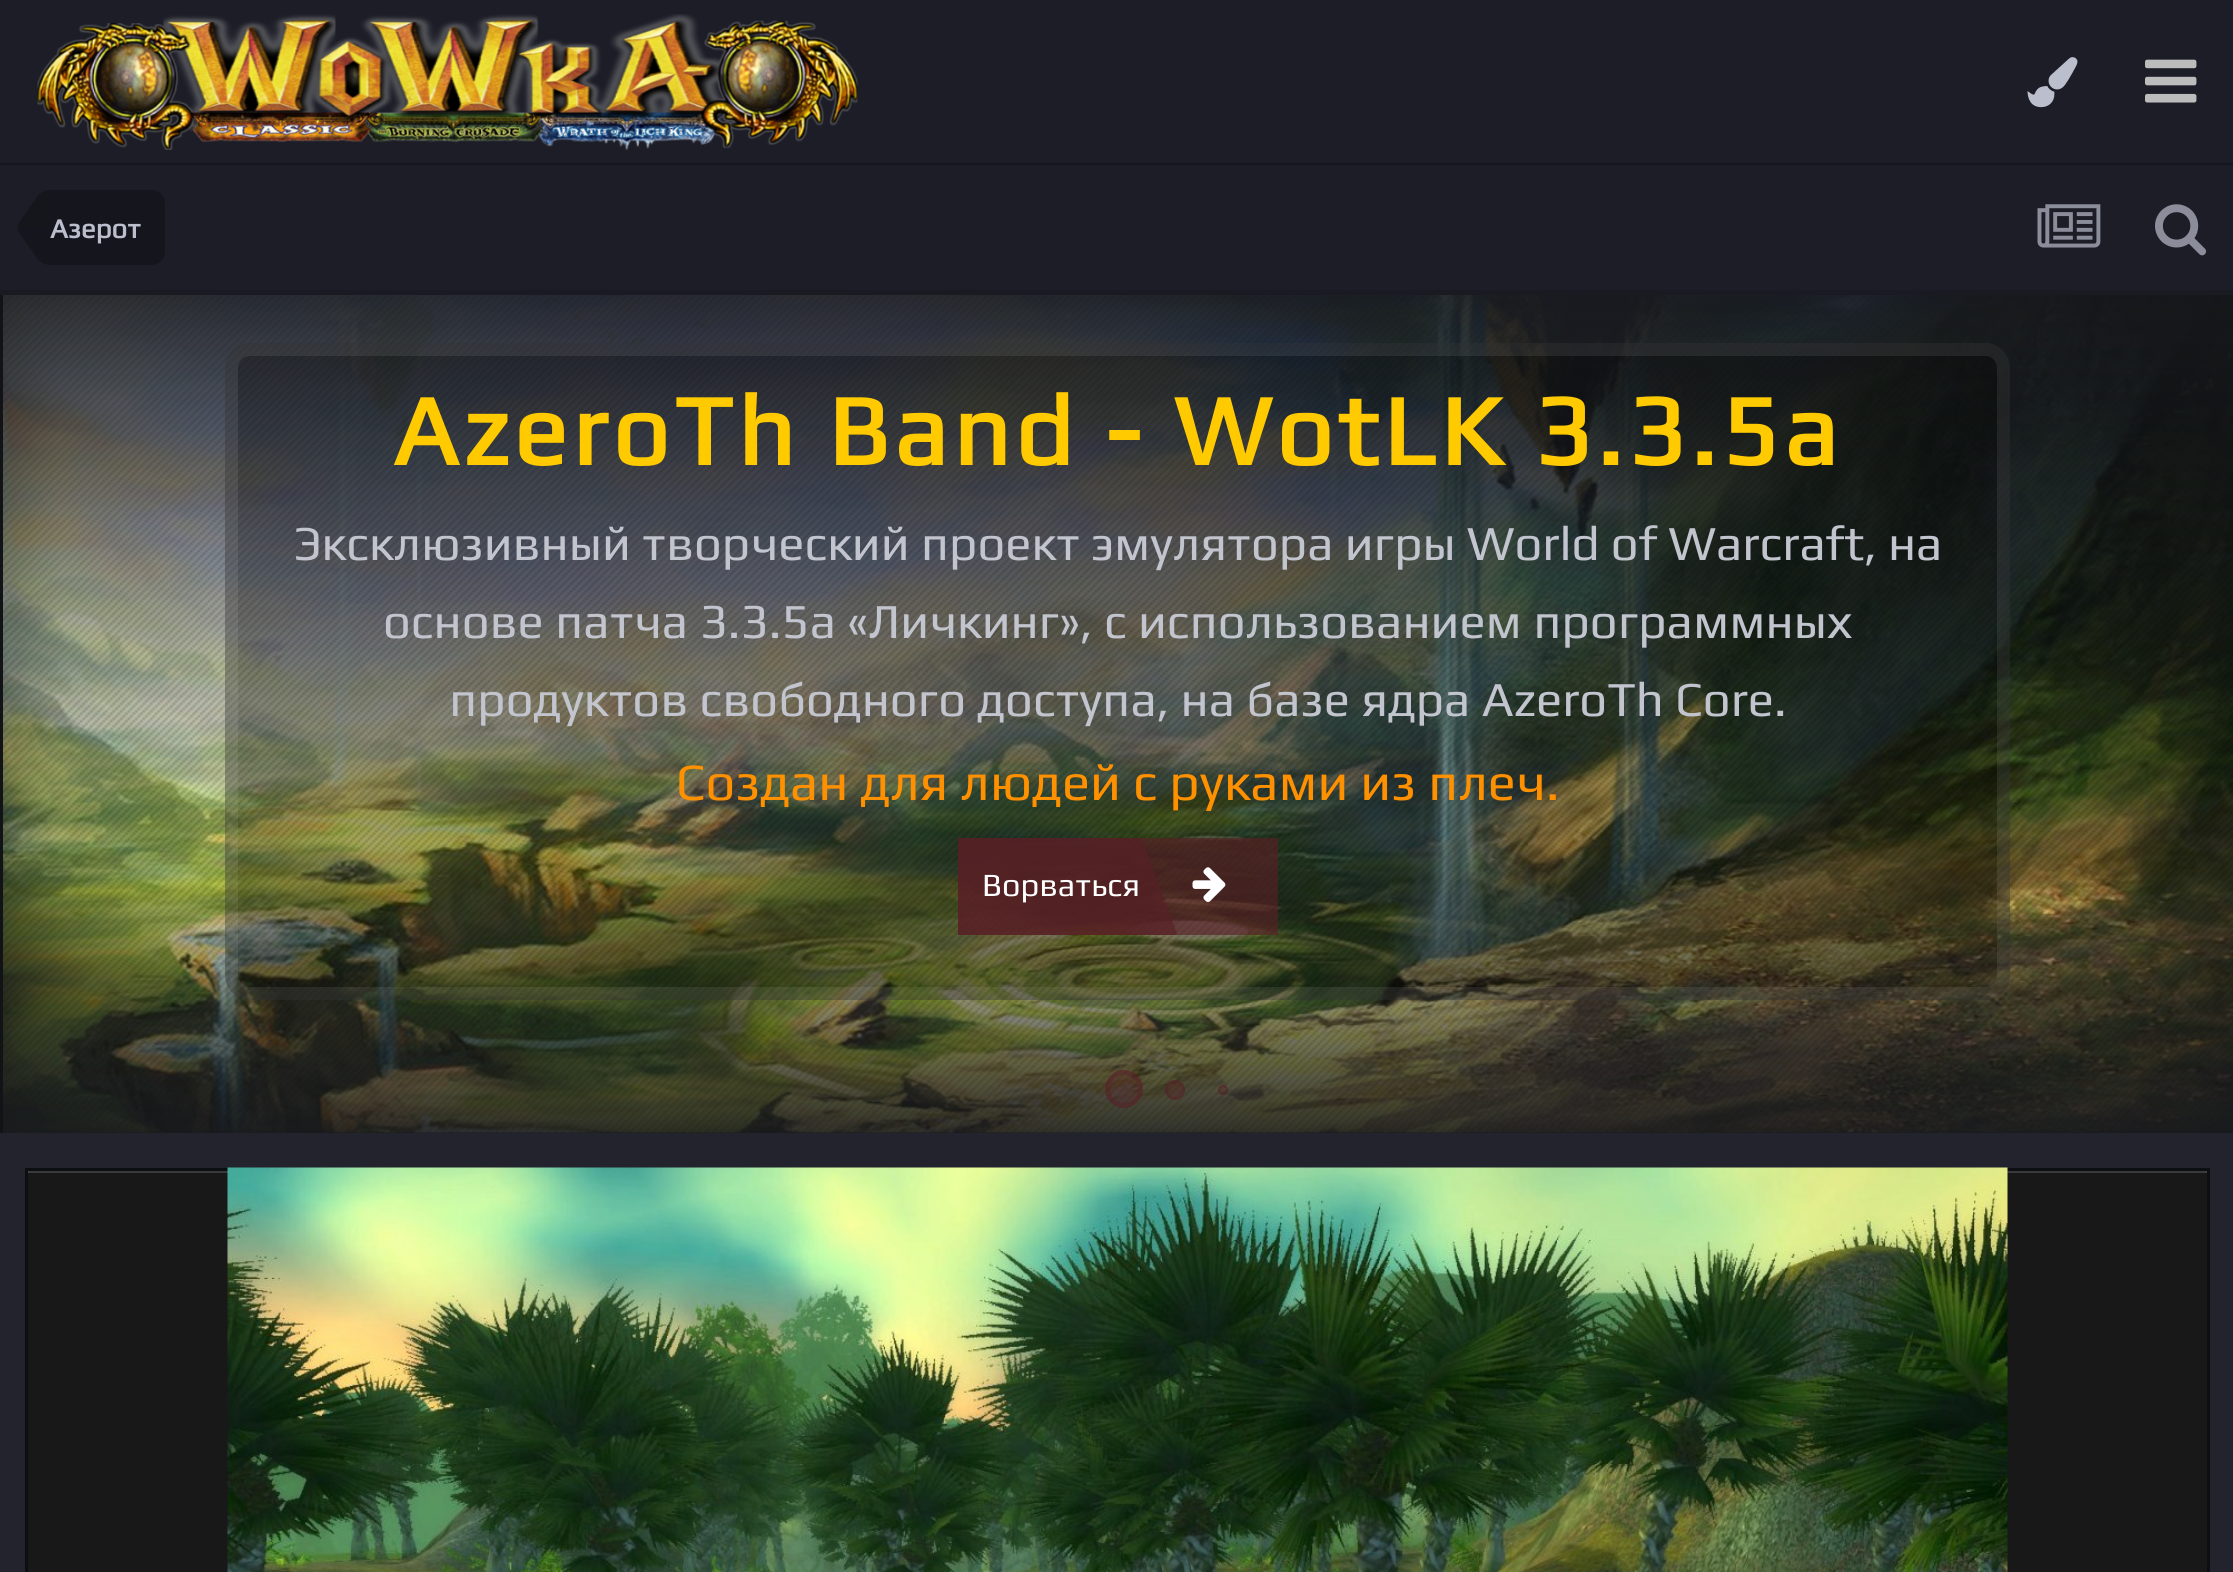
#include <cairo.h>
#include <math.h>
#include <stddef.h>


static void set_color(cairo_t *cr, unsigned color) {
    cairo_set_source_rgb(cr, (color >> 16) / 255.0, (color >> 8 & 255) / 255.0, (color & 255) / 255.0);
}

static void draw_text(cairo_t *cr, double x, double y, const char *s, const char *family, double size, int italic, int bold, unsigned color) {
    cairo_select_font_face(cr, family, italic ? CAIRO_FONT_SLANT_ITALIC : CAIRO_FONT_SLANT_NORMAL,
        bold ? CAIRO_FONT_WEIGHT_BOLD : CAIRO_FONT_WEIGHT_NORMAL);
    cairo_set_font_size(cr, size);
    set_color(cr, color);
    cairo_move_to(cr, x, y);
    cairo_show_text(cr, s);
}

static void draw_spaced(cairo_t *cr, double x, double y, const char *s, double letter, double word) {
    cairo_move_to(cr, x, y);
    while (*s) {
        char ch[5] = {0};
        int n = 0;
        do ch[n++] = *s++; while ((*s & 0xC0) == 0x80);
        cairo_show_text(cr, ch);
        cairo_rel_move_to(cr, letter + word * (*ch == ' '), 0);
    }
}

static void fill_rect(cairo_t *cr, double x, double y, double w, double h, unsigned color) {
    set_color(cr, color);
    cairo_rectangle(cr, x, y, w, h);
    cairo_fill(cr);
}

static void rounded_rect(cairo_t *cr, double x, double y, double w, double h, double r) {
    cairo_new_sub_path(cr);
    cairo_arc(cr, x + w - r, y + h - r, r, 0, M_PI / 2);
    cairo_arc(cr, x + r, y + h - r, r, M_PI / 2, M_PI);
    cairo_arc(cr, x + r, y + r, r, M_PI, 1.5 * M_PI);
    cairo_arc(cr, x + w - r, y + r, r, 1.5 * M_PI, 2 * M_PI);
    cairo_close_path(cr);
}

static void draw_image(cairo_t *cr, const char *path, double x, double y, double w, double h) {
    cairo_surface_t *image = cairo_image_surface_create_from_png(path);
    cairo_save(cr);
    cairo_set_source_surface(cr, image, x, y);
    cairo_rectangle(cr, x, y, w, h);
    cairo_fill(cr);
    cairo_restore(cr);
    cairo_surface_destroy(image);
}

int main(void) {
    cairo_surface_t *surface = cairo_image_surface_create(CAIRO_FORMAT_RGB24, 2233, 1572);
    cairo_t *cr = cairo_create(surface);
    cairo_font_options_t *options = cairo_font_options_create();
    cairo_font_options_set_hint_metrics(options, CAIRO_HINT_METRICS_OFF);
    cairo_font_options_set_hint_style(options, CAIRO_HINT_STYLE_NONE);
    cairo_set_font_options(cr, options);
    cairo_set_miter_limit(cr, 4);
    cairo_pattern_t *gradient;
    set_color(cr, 0x1C1D26);
    cairo_paint(cr);
    fill_rect(cr, 0, 163, 2233, 2, 0x16171E);
    draw_image(cr, "assets/img1.png", 37, 14, 821, 136);
    draw_image(cr, "assets/img2.png", 2027, 57, 51, 51);
    draw_image(cr, "assets/img3.png", 2145, 59, 52, 44);
    fill_rect(cr, 0, 290, 2233, 5, 0x191A22);
    set_color(cr, 0x15161D);
    cairo_new_path(cr);
    cairo_move_to(cr, 50, 190);
    cairo_line_to(cr, 152, 190);
    cairo_curve_to(cr, 159, 190, 165, 196, 165, 203);
    cairo_line_to(cr, 165, 252);
    cairo_curve_to(cr, 165, 259, 159, 265, 152, 265);
    cairo_line_to(cr, 50, 265);
    cairo_close_path(cr);
    cairo_fill(cr);
    cairo_new_path(cr);
    cairo_move_to(cr, 18.5, 232);
    cairo_curve_to(cr, 18, 230.5, 17.5, 229, 17.5, 227.5);
    cairo_line_to(cr, 50, 227.5);
    cairo_line_to(cr, 50, 265);
    cairo_curve_to(cr, 45.5, 265, 41, 263, 37.5, 259);
    cairo_close_path(cr);
    cairo_fill(cr);
    cairo_set_source_rgba(cr, 0, 0, 0, 0.25);
    cairo_new_path(cr);
    cairo_move_to(cr, 50, 190);
    cairo_line_to(cr, 50, 227.5);
    cairo_line_to(cr, 17.5, 227.5);
    cairo_curve_to(cr, 17.5, 226, 18, 224.5, 18.5, 223);
    cairo_line_to(cr, 37.5, 196);
    cairo_curve_to(cr, 41, 192, 45.5, 190, 50, 190);
    cairo_close_path(cr);
    cairo_fill(cr);
    draw_text(cr, 50, 238, "Азерот", "Play", 27.5, 0, 1, 0xBBBFCD);
    draw_image(cr, "assets/img4.png", 2037, 204, 64, 44);
    draw_image(cr, "assets/img5.png", 2155, 204, 52, 52);
    fill_rect(cr, 0, 295, 3, 838, 0x121317);
    fill_rect(cr, 3, 1132, 2230, 1, 0x22232C);
    draw_image(cr, "assets/img6.png", 3, 295, 2230, 838);
    draw_image(cr, "assets/img7.png", 3, 295, 2230, 838);
    gradient = cairo_pattern_create_linear(1118, 1138, 1118, 295);
    cairo_pattern_add_color_stop_rgba(gradient, 0, 0.094, 0.098, 0.114, 0.9);
    cairo_pattern_add_color_stop_rgba(gradient, 0.35, 0.094, 0.098, 0.114, 0);
    cairo_pattern_add_color_stop_rgba(gradient, 1, 0.094, 0.098, 0.114, 0.9);
    cairo_set_source(cr, gradient);
    cairo_pattern_destroy(gradient);
    cairo_rectangle(cr, 3, 295, 2230, 838);
    cairo_fill(cr);
    cairo_set_source_rgba(cr, 0, 0, 0, 0.34);
    rounded_rect(cr, 225, 343, 1785, 657, 25);
    cairo_fill(cr);
    rounded_rect(cr, 231.5, 349.5, 1772, 644, 18.5);
    cairo_set_source_rgba(cr, 1, 1, 1, 0.08);
    cairo_set_line_width(cr, 13);
    cairo_stroke(cr);
    cairo_set_font_size(cr, 100);
    set_color(cr, 0xFFCA00);
    draw_spaced(cr, 393, 465, "AzeroTh Band - WotLK 3.3.5a", 5, 0);
    draw_text(cr, 294, 560, "Эксклюзивный творческий проект эмулятора игры World of Warcraft, на", "Play", 49, 0, 0, 0xC2C4CE);
    draw_text(cr, 383, 638, "основе патча 3.3.5а «Личкинг», с использованием программных", "Play", 49, 0, 0, 0xC2C4CE);
    draw_text(cr, 449, 716, "продуктов свободного доступа, на базе ядра AzeroTh Core.", "Play", 49, 0, 0, 0xC2C4CE);
    draw_text(cr, 676, 800, "Создан для людей с руками из плеч.", "Play", 52.5, 0, 0, 0xFF9000);
    cairo_save(cr);
    cairo_rectangle(cr, 958, 838, 320, 97);
    cairo_clip(cr);
    cairo_set_source_rgba(cr, 0.345, 0.125, 0.149, 0.65);
    cairo_new_path(cr);
    cairo_move_to(cr, 907, 836);
    cairo_line_to(cr, 1114, 761);
    cairo_line_to(cr, 1197, 989);
    cairo_line_to(cr, 990, 1064);
    cairo_close_path(cr);
    cairo_fill(cr);
    cairo_restore(cr);
    cairo_set_source_rgba(cr, 0.345, 0.125, 0.149, 0.65);
    cairo_rectangle(cr, 958, 838, 320, 97);
    cairo_fill(cr);
    draw_image(cr, "assets/img8.png", 1192, 867, 34, 35);
    draw_text(cr, 982, 896, "Ворваться", "Play", 32.5, 0, 0, 0xFFFFFF);
    cairo_set_source_rgba(cr, 0.345, 0.125, 0.149, 0.35);
    cairo_new_path(cr);
    cairo_arc(cr, 1124, 1089, 19, 0, 2 * M_PI);
    cairo_fill(cr);
    cairo_arc(cr, 1124, 1089, 16.5, 0, 2 * M_PI);
    cairo_set_source_rgba(cr, 0.345, 0.125, 0.149, 0.4);
    cairo_set_line_width(cr, 5);
    cairo_stroke(cr);
    cairo_set_source_rgba(cr, 0.345, 0.125, 0.149, 0.35);
    cairo_arc(cr, 1175, 1090, 10, 0, 2 * M_PI);
    cairo_fill(cr);
    cairo_arc(cr, 1175, 1090, 8.5, 0, 2 * M_PI);
    cairo_set_source_rgba(cr, 0.345, 0.125, 0.149, 0.4);
    cairo_set_line_width(cr, 3);
    cairo_stroke(cr);
    cairo_set_source_rgba(cr, 0.345, 0.125, 0.149, 0.35);
    cairo_arc(cr, 1223, 1090, 5, 0, 2 * M_PI);
    cairo_fill(cr);
    cairo_arc(cr, 1223, 1090, 4, 0, 2 * M_PI);
    cairo_set_source_rgba(cr, 0.345, 0.125, 0.149, 0.4);
    cairo_set_line_width(cr, 2);
    cairo_stroke(cr);
    fill_rect(cr, 0, 1133, 2233, 439, 0x22232C);
    set_color(cr, 0x3D3D3D);
    cairo_new_path(cr);
    cairo_move_to(cr, 35, 1170);
    cairo_line_to(cr, 2200, 1170);
    cairo_curve_to(cr, 2205.5, 1170, 2210, 1174.5, 2210, 1180);
    cairo_line_to(cr, 2210, 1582);
    cairo_line_to(cr, 25, 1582);
    cairo_line_to(cr, 25, 1180);
    cairo_curve_to(cr, 25, 1174.5, 29.5, 1170, 35, 1170);
    cairo_close_path(cr);
    cairo_fill(cr);
    cairo_set_source_rgba(cr, 0, 0, 0, 0.6);
    cairo_new_path(cr);
    cairo_move_to(cr, 35, 1170);
    cairo_line_to(cr, 2200, 1170);
    cairo_curve_to(cr, 2205.5, 1170, 2210, 1174.5, 2210, 1180);
    cairo_line_to(cr, 2210, 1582);
    cairo_line_to(cr, 25, 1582);
    cairo_line_to(cr, 25, 1180);
    cairo_curve_to(cr, 25, 1174.5, 29.5, 1170, 35, 1170);
    cairo_close_path(cr);
    cairo_fill(cr);
    cairo_set_source_rgba(cr, 1, 1, 1, 0.15);
    cairo_rectangle(cr, 28, 1171, 2180, 2);
    cairo_fill(cr);
    cairo_rectangle(cr, 26.5, 1169.5, 2182, 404);
    set_color(cr, 0x0D0E12);
    cairo_set_line_width(cr, 3);
    cairo_stroke(cr);
    draw_image(cr, "assets/img9.png", 227, 1167, 1781, 405);
    cairo_surface_write_to_png(surface, "output.png");
    cairo_font_options_destroy(options);
    cairo_destroy(cr);
    cairo_surface_destroy(surface);
    return 0;
}
